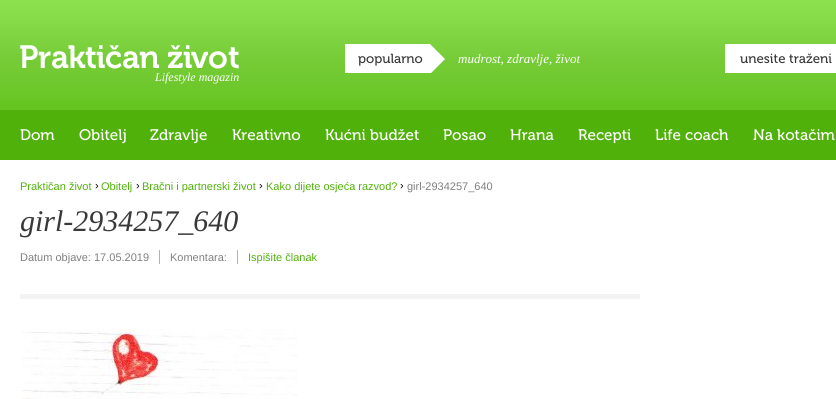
#include <cairo.h>
#include <math.h>
#include <stddef.h>


static void set_color(cairo_t *cr, unsigned color) {
    cairo_set_source_rgb(cr, (color >> 16) / 255.0, (color >> 8 & 255) / 255.0, (color & 255) / 255.0);
}

static void draw_text(cairo_t *cr, double x, double y, const char *s, const char *family, double size, int italic, int bold, unsigned color) {
    cairo_select_font_face(cr, family, italic ? CAIRO_FONT_SLANT_ITALIC : CAIRO_FONT_SLANT_NORMAL,
        bold ? CAIRO_FONT_WEIGHT_BOLD : CAIRO_FONT_WEIGHT_NORMAL);
    cairo_set_font_size(cr, size);
    set_color(cr, color);
    cairo_move_to(cr, x, y);
    cairo_show_text(cr, s);
}

static void fill_rect(cairo_t *cr, double x, double y, double w, double h, unsigned color) {
    set_color(cr, color);
    cairo_rectangle(cr, x, y, w, h);
    cairo_fill(cr);
}

static void draw_image(cairo_t *cr, const char *path, double x, double y, double w, double h) {
    cairo_surface_t *image = cairo_image_surface_create_from_png(path);
    cairo_save(cr);
    cairo_set_source_surface(cr, image, x, y);
    cairo_rectangle(cr, x, y, w, h);
    cairo_fill(cr);
    cairo_restore(cr);
    cairo_surface_destroy(image);
}

int main(void) {
    cairo_surface_t *surface = cairo_image_surface_create(CAIRO_FORMAT_RGB24, 836, 399);
    cairo_t *cr = cairo_create(surface);
    cairo_font_options_t *options = cairo_font_options_create();
    cairo_font_options_set_hint_metrics(options, CAIRO_HINT_METRICS_OFF);
    cairo_font_options_set_hint_style(options, CAIRO_HINT_STYLE_NONE);
    cairo_set_font_options(cr, options);
    cairo_set_miter_limit(cr, 4);
    set_color(cr, 0xFFFFFF);
    cairo_paint(cr);
    fill_rect(cr, 0, 101, 836, 9, 0x66C520);
    draw_image(cr, "assets/img1.png", 0, 0, 836, 101);
    draw_image(cr, "assets/img2.png", 345, 44, 100, 29);
    draw_text(cr, 358, 63, "popularno", "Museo", 13, 0, 0, 0x393939);
    draw_text(cr, 458, 63, "mudrost, zdravlje, život", "Liberation Serif", 13, 1, 0, 0xFFFFFF);
    fill_rect(cr, 725, 44, 111, 29, 0xFFFFFF);
    draw_text(cr, 740, 63, "unesite traženi", "Museo", 13, 0, 0, 0x393939);
    draw_image(cr, "assets/img3.png", 20, 45, 219, 24);
    draw_text(cr, 155, 81, "Lifestyle magazin", "Liberation Serif", 12, 1, 0, 0xFFFFFF);
    fill_rect(cr, 0, 110, 836, 50, 0x51B10B);
    draw_text(cr, 20, 140, "Dom", "Museo", 15, 0, 0, 0xFFFFFF);
    draw_text(cr, 79, 140, "Obitelj", "Museo", 15, 0, 0, 0xFFFFFF);
    draw_text(cr, 150, 140, "Zdravlje", "Museo", 15, 0, 0, 0xFFFFFF);
    draw_text(cr, 232, 140, "Kreativno", "Museo", 15, 0, 0, 0xFFFFFF);
    draw_text(cr, 325, 140, "Kućni budžet", "Museo", 15, 0, 0, 0xFFFFFF);
    draw_text(cr, 443, 140, "Posao", "Museo", 15, 0, 0, 0xFFFFFF);
    draw_text(cr, 510, 140, "Hrana", "Museo", 15, 0, 0, 0xFFFFFF);
    draw_text(cr, 578, 140, "Recepti", "Museo", 15, 0, 0, 0xFFFFFF);
    draw_text(cr, 655, 140, "Life coach", "Museo", 15, 0, 0, 0xFFFFFF);
    draw_text(cr, 753, 140, "Na kotačim", "Museo", 15, 0, 0, 0xFFFFFF);
    draw_text(cr, 20, 190, "Praktičan život", "Liberation Sans", 11, 0, 0, 0x51B10B);
    draw_text(cr, 95, 189, "›", "Liberation Sans", 11, 0, 0, 0x000000);
    draw_text(cr, 101, 190, "Obitelj", "Liberation Sans", 11, 0, 0, 0x51B10B);
    draw_text(cr, 136, 189, "›", "Liberation Sans", 11, 0, 0, 0x000000);
    draw_text(cr, 142, 190, "Bračni i partnerski život", "Liberation Sans", 11, 0, 0, 0x51B10B);
    draw_text(cr, 259, 189, "›", "Liberation Sans", 11, 0, 0, 0x000000);
    draw_text(cr, 266, 190, "Kako dijete osjeća razvod?", "Liberation Sans", 11, 0, 0, 0x51B10B);
    draw_text(cr, 400, 189, "›", "Liberation Sans", 11, 0, 0, 0x000000);
    draw_text(cr, 407, 190, "girl-2934257_640", "Liberation Sans", 11, 0, 0, 0x7F7F7F);
    draw_text(cr, 20, 231, "girl-2934257_640", "Liberation Serif", 30, 1, 0, 0x393939);
    draw_text(cr, 20, 261, "Datum objave: 17.05.2019", "Liberation Sans", 11, 0, 0, 0x7F7F7F);
    fill_rect(cr, 159, 250, 1, 14, 0xB2B2B2);
    draw_text(cr, 170, 261, "Komentara:", "Liberation Sans", 11, 0, 0, 0x7F7F7F);
    fill_rect(cr, 237, 250, 1, 14, 0xB2B2B2);
    draw_text(cr, 248, 261, "Ispišite članak", "Liberation Sans", 11, 0, 0, 0x51B10B);
    fill_rect(cr, 20, 294, 620, 5, 0xF3F3F3);
    draw_image(cr, "assets/img4.png", 22, 329, 276, 70);
    cairo_surface_write_to_png(surface, "output.png");
    cairo_font_options_destroy(options);
    cairo_destroy(cr);
    cairo_surface_destroy(surface);
    return 0;
}
